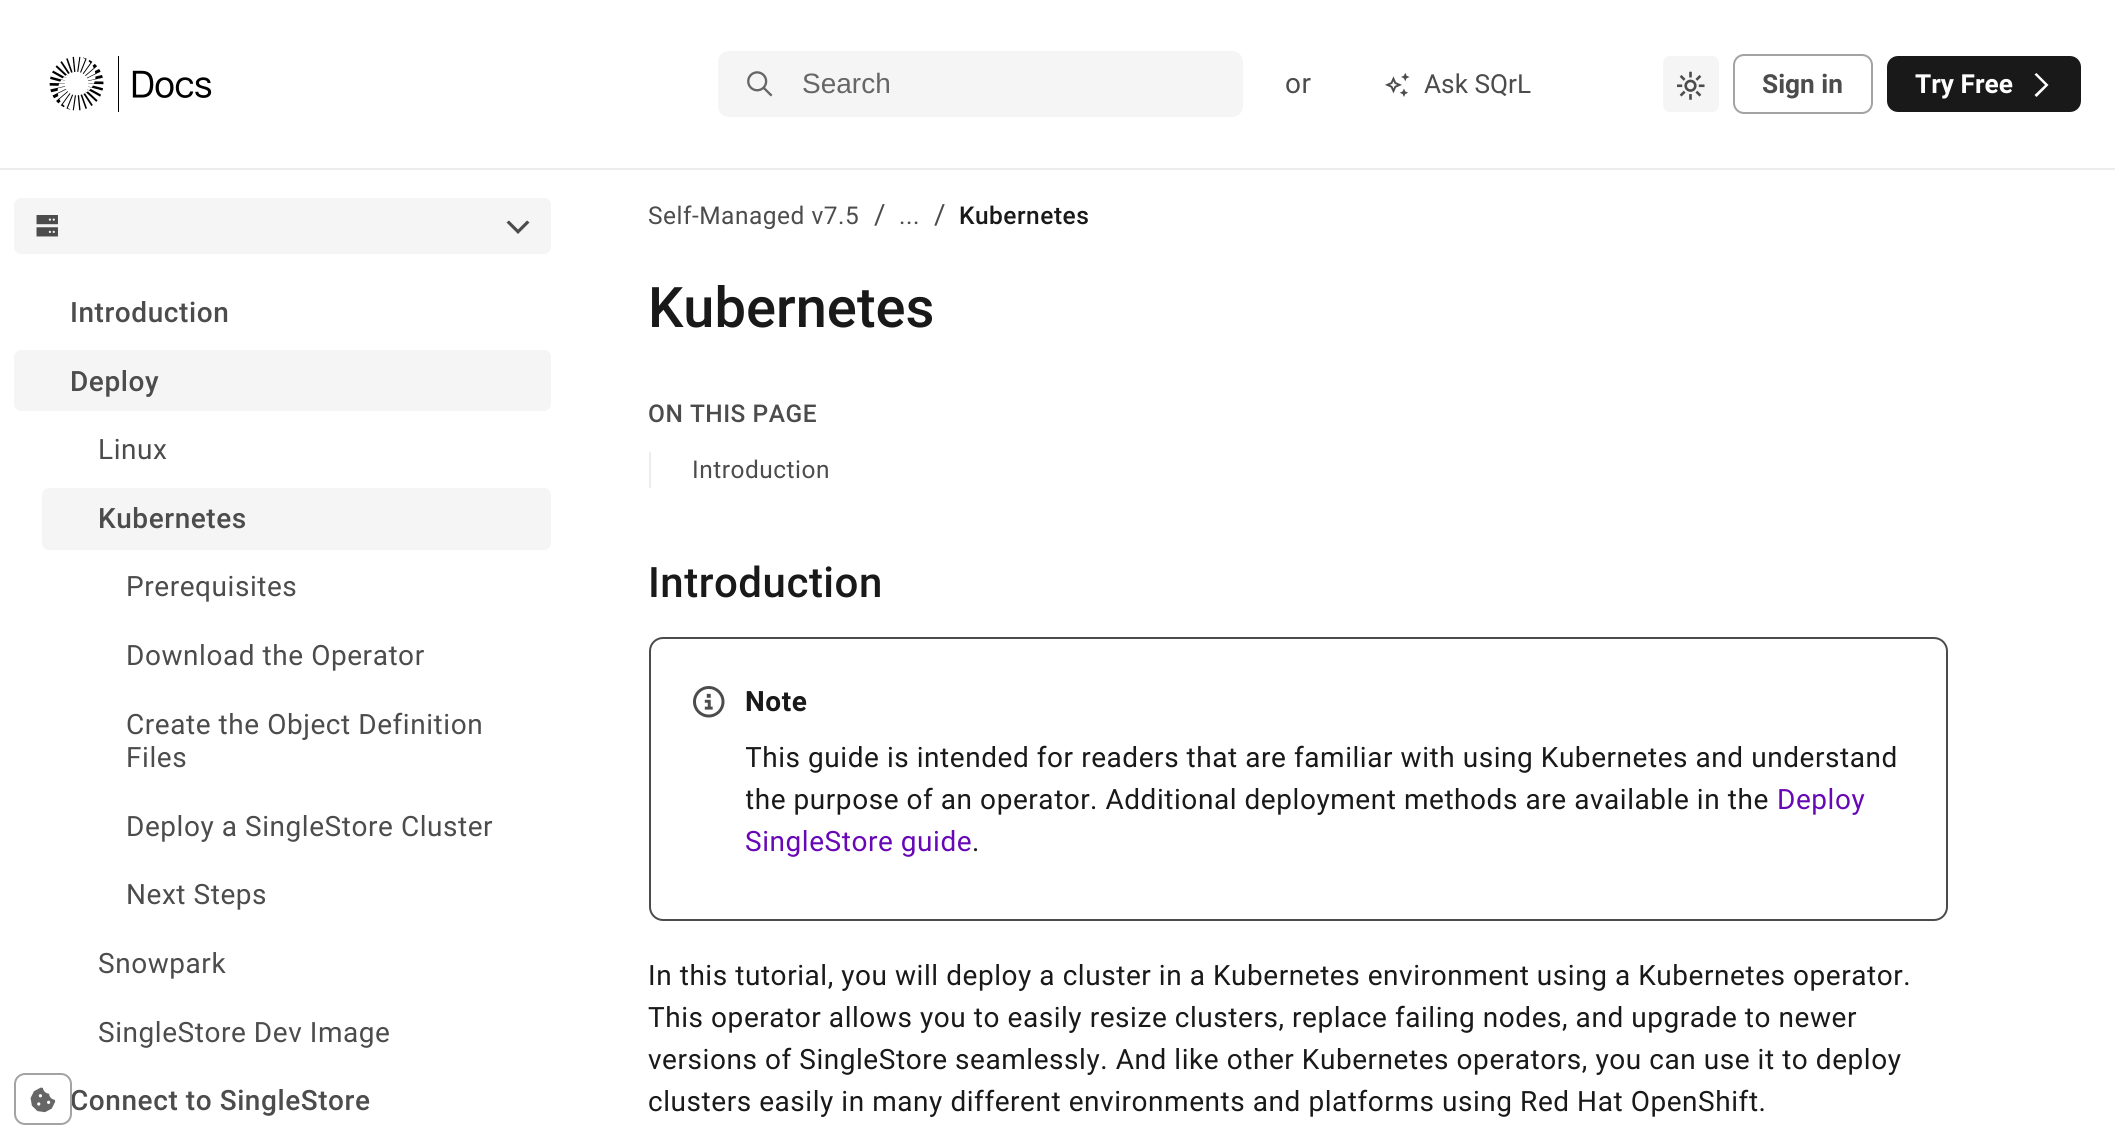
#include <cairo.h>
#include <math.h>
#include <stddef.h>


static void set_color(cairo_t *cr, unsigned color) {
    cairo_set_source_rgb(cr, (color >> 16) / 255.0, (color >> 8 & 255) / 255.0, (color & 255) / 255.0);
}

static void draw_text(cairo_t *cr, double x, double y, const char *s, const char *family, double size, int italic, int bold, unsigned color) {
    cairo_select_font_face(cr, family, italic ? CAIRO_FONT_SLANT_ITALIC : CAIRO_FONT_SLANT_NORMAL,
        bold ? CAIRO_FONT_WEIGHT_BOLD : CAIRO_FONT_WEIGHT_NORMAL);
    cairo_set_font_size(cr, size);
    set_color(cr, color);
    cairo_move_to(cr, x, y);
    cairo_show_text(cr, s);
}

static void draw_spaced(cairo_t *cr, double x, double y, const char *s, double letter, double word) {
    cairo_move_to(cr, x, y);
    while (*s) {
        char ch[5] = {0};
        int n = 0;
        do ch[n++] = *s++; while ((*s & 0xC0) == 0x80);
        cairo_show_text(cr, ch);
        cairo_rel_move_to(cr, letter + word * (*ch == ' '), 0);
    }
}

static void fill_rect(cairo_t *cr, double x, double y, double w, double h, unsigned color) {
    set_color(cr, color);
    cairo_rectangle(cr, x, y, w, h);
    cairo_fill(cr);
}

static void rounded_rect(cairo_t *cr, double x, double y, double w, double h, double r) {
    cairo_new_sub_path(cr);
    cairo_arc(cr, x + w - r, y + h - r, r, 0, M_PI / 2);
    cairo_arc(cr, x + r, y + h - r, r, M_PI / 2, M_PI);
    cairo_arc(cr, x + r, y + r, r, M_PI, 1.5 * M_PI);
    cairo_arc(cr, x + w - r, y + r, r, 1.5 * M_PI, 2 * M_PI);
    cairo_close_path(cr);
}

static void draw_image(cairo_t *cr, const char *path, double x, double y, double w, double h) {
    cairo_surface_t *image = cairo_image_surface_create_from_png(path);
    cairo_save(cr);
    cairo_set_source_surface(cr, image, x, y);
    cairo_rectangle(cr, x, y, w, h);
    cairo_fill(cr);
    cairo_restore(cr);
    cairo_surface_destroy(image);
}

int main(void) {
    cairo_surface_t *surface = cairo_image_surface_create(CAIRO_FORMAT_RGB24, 2115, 1139);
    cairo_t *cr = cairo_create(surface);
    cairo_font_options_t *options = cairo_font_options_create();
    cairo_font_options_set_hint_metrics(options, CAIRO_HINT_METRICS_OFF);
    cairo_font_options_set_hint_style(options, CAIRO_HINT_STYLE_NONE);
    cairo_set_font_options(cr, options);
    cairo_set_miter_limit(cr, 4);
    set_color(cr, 0xFFFFFF);
    cairo_paint(cr);
    fill_rect(cr, 0, 168, 2115, 2, 0xEDEDED);
    draw_image(cr, "assets/img1.png", 49, 56, 163, 56);
    set_color(cr, 0xF5F5F5);
    rounded_rect(cr, 718, 51, 525, 66, 11);
    cairo_fill(cr);
    draw_image(cr, "assets/img2.png", 747, 71, 26, 26);
    draw_text(cr, 802, 93, "Search", "Liberation Sans", 28, 0, 0, 0x666666);
    cairo_select_font_face(cr, "Roboto", CAIRO_FONT_SLANT_NORMAL, CAIRO_FONT_WEIGHT_NORMAL);
    set_color(cr, 0x4C4C4C);
    draw_spaced(cr, 1285, 93, "or", 0.56, 0);
    draw_image(cr, "assets/img3.png", 1385, 72, 25, 25);
    draw_text(cr, 1424, 93, "Ask SQrL", "Roboto", 26.25, 0, 0, 0x4C4C4C);
    set_color(cr, 0xF5F5F5);
    rounded_rect(cr, 1663, 56, 56, 56, 7);
    cairo_fill(cr);
    draw_image(cr, "assets/img4.png", 1677, 71, 28, 29);
    rounded_rect(cr, 1734, 55, 138, 58, 10);
    set_color(cr, 0xA3A3A3);
    cairo_stroke(cr);
    draw_text(cr, 1762, 93, "Sign in", "Roboto", 26.25, 0, 1, 0x4C4C4C);
    set_color(cr, 0x191919);
    rounded_rect(cr, 1887, 56, 194, 56, 11);
    cairo_fill(cr);
    draw_text(cr, 1915, 93, "Try Free", "Roboto", 26.25, 0, 1, 0xFFFFFF);
    cairo_new_path(cr);
    cairo_move_to(cr, 2048.5, 85);
    cairo_line_to(cr, 2036.5, 97);
    cairo_line_to(cr, 2034.5, 95);
    cairo_line_to(cr, 2045, 85);
    cairo_line_to(cr, 2034.5, 74.5);
    cairo_line_to(cr, 2036.5, 73);
    cairo_close_path(cr);
    cairo_fill(cr);
    cairo_select_font_face(cr, "Roboto Medium", CAIRO_FONT_SLANT_NORMAL, CAIRO_FONT_WEIGHT_NORMAL);
    cairo_set_font_size(cr, 28);
    set_color(cr, 0x4C4C4C);
    draw_spaced(cr, 70, 1110, "Connect to SingleStore", 0.56, 0);
    set_color(cr, 0xFFFFFF);
    rounded_rect(cr, 15, 1074, 56, 50, 10);
    cairo_fill_preserve(cr);
    set_color(cr, 0xA3A3A3);
    cairo_stroke(cr);
    draw_image(cr, "assets/img5.png", 30, 1087, 26, 26);
    set_color(cr, 0xF5F5F5);
    rounded_rect(cr, 14, 198, 537, 56, 7);
    cairo_fill(cr);
    draw_image(cr, "assets/img6.png", 36, 215, 22, 22);
    set_color(cr, 0x4C4C4C);
    cairo_new_path(cr);
    cairo_move_to(cr, 518, 234);
    cairo_line_to(cr, 529.5, 222.5);
    cairo_line_to(cr, 527, 220.5);
    cairo_line_to(cr, 518, 229.5);
    cairo_line_to(cr, 509, 220.5);
    cairo_line_to(cr, 506.5, 222.5);
    cairo_close_path(cr);
    cairo_fill(cr);
    draw_spaced(cr, 70, 322, "Introduction", 0.56, 0);
    set_color(cr, 0xF5F5F5);
    rounded_rect(cr, 14, 350, 537, 61, 7);
    cairo_fill(cr);
    set_color(cr, 0x4C4C4C);
    draw_spaced(cr, 70, 391, "Deploy", 0.56, 0);
    cairo_select_font_face(cr, "Roboto", CAIRO_FONT_SLANT_NORMAL, CAIRO_FONT_WEIGHT_NORMAL);
    draw_spaced(cr, 98, 459, "Linux", 0.56, 0);
    set_color(cr, 0xF5F5F5);
    rounded_rect(cr, 42, 488, 509, 62, 7);
    cairo_fill(cr);
    cairo_select_font_face(cr, "Roboto Medium", CAIRO_FONT_SLANT_NORMAL, CAIRO_FONT_WEIGHT_NORMAL);
    set_color(cr, 0x4C4C4C);
    draw_spaced(cr, 98, 528, "Kubernetes", 0.56, 0);
    cairo_select_font_face(cr, "Roboto", CAIRO_FONT_SLANT_NORMAL, CAIRO_FONT_WEIGHT_NORMAL);
    draw_spaced(cr, 126, 596, "Prerequisites", 0.56, 0);
    draw_spaced(cr, 126, 665, "Download the Operator", 0.56, 0);
    draw_spaced(cr, 126, 734, "Create the Object Definition", 0.56, 0);
    draw_spaced(cr, 126, 767, "Files", 0.56, 0);
    draw_spaced(cr, 126, 836, "Deploy a SingleStore Cluster", 0.56, 0);
    draw_spaced(cr, 126, 904, "Next Steps", 0.56, 0);
    draw_spaced(cr, 98, 973, "Snowpark", 0.56, 0);
    draw_spaced(cr, 98, 1042, "SingleStore Dev Image", 0.56, 0);
    cairo_set_font_size(cr, 24.5);
    draw_spaced(cr, 648, 224, "Self-Managed v7.5", 0.5, 0);
    draw_text(cr, 874, 224, "/", "Roboto", 28, 0, 0, 0x4C4C4C);
    cairo_set_font_size(cr, 24.5);
    draw_spaced(cr, 899, 224, "...", 0.5, 0);
    draw_text(cr, 934, 224, "/", "Roboto", 28, 0, 0, 0x4C4C4C);
    cairo_select_font_face(cr, "Roboto Medium", CAIRO_FONT_SLANT_NORMAL, CAIRO_FONT_WEIGHT_NORMAL);
    cairo_set_font_size(cr, 24.5);
    set_color(cr, 0x191919);
    draw_spaced(cr, 959, 224, "Kubernetes", 0.5, 0);
    draw_text(cr, 648, 327, "Kubernetes", "Roboto Medium", 56, 0, 0, 0x191919);
    cairo_set_font_size(cr, 24.5);
    set_color(cr, 0x4C4C4C);
    draw_spaced(cr, 648, 422, "ON THIS PAGE", 0.5, 0);
    fill_rect(cr, 649, 452, 2, 36, 0xEDEDED);
    cairo_select_font_face(cr, "Roboto", CAIRO_FONT_SLANT_NORMAL, CAIRO_FONT_WEIGHT_NORMAL);
    set_color(cr, 0x4C4C4C);
    draw_spaced(cr, 692, 478, "Introduction", 0.5, 0);
    cairo_select_font_face(cr, "Roboto Medium", CAIRO_FONT_SLANT_NORMAL, CAIRO_FONT_WEIGHT_NORMAL);
    cairo_set_font_size(cr, 42);
    set_color(cr, 0x191919);
    draw_spaced(cr, 648, 597, "Introduction", 0.5, 0);
    rounded_rect(cr, 650, 638, 1297, 282, 13);
    set_color(cr, 0x4C4C4C);
    cairo_stroke(cr);
    draw_image(cr, "assets/img7.png", 693, 686, 32, 32);
    cairo_select_font_face(cr, "Roboto", CAIRO_FONT_SLANT_NORMAL, CAIRO_FONT_WEIGHT_BOLD);
    cairo_set_font_size(cr, 28);
    set_color(cr, 0x191919);
    draw_spaced(cr, 745, 711, "Note", 0.56, 0);
    cairo_save(cr);
    cairo_rectangle(cr, 746, 681, 1158, 196);
    cairo_clip(cr);
    cairo_select_font_face(cr, "Roboto", CAIRO_FONT_SLANT_NORMAL, CAIRO_FONT_WEIGHT_NORMAL);
    draw_spaced(cr, 745, 767, "This guide is intended for readers that are familiar with using Kubernetes and understand", 0.56, 0);
    draw_spaced(cr, 745, 809, "the purpose of an operator", 0.56, 0);
    cairo_restore(cr);
    cairo_select_font_face(cr, "Roboto", CAIRO_FONT_SLANT_NORMAL, CAIRO_FONT_WEIGHT_NORMAL);
    draw_spaced(cr, 1090, 809, ". Additional deployment methods are available in the", 0.56, 0);
    set_color(cr, 0x6707B6);
    draw_spaced(cr, 1777, 809, "Deploy", 0.56, 0);
    draw_spaced(cr, 745, 851, "SingleStore guide", 0.56, 0);
    set_color(cr, 0x191919);
    draw_spaced(cr, 972, 851, ".", 0.56, 0);
    draw_spaced(cr, 648, 985, "In this tutorial, you will deploy a cluster in a Kubernetes environment using a Kubernetes operator.", 0.56, 0);
    draw_spaced(cr, 648, 1027, "This operator allows you to easily resize clusters, replace failing nodes, and upgrade to newer", 0.56, 0);
    draw_spaced(cr, 648, 1069, "versions of SingleStore seamlessly. And like other Kubernetes operators, you can use it to deploy", 0.56, 0);
    draw_spaced(cr, 648, 1111, "clusters easily in many different environments and platforms using Red Hat OpenShift.", 0.56, 0);
    cairo_surface_write_to_png(surface, "output.png");
    cairo_font_options_destroy(options);
    cairo_destroy(cr);
    cairo_surface_destroy(surface);
    return 0;
}
